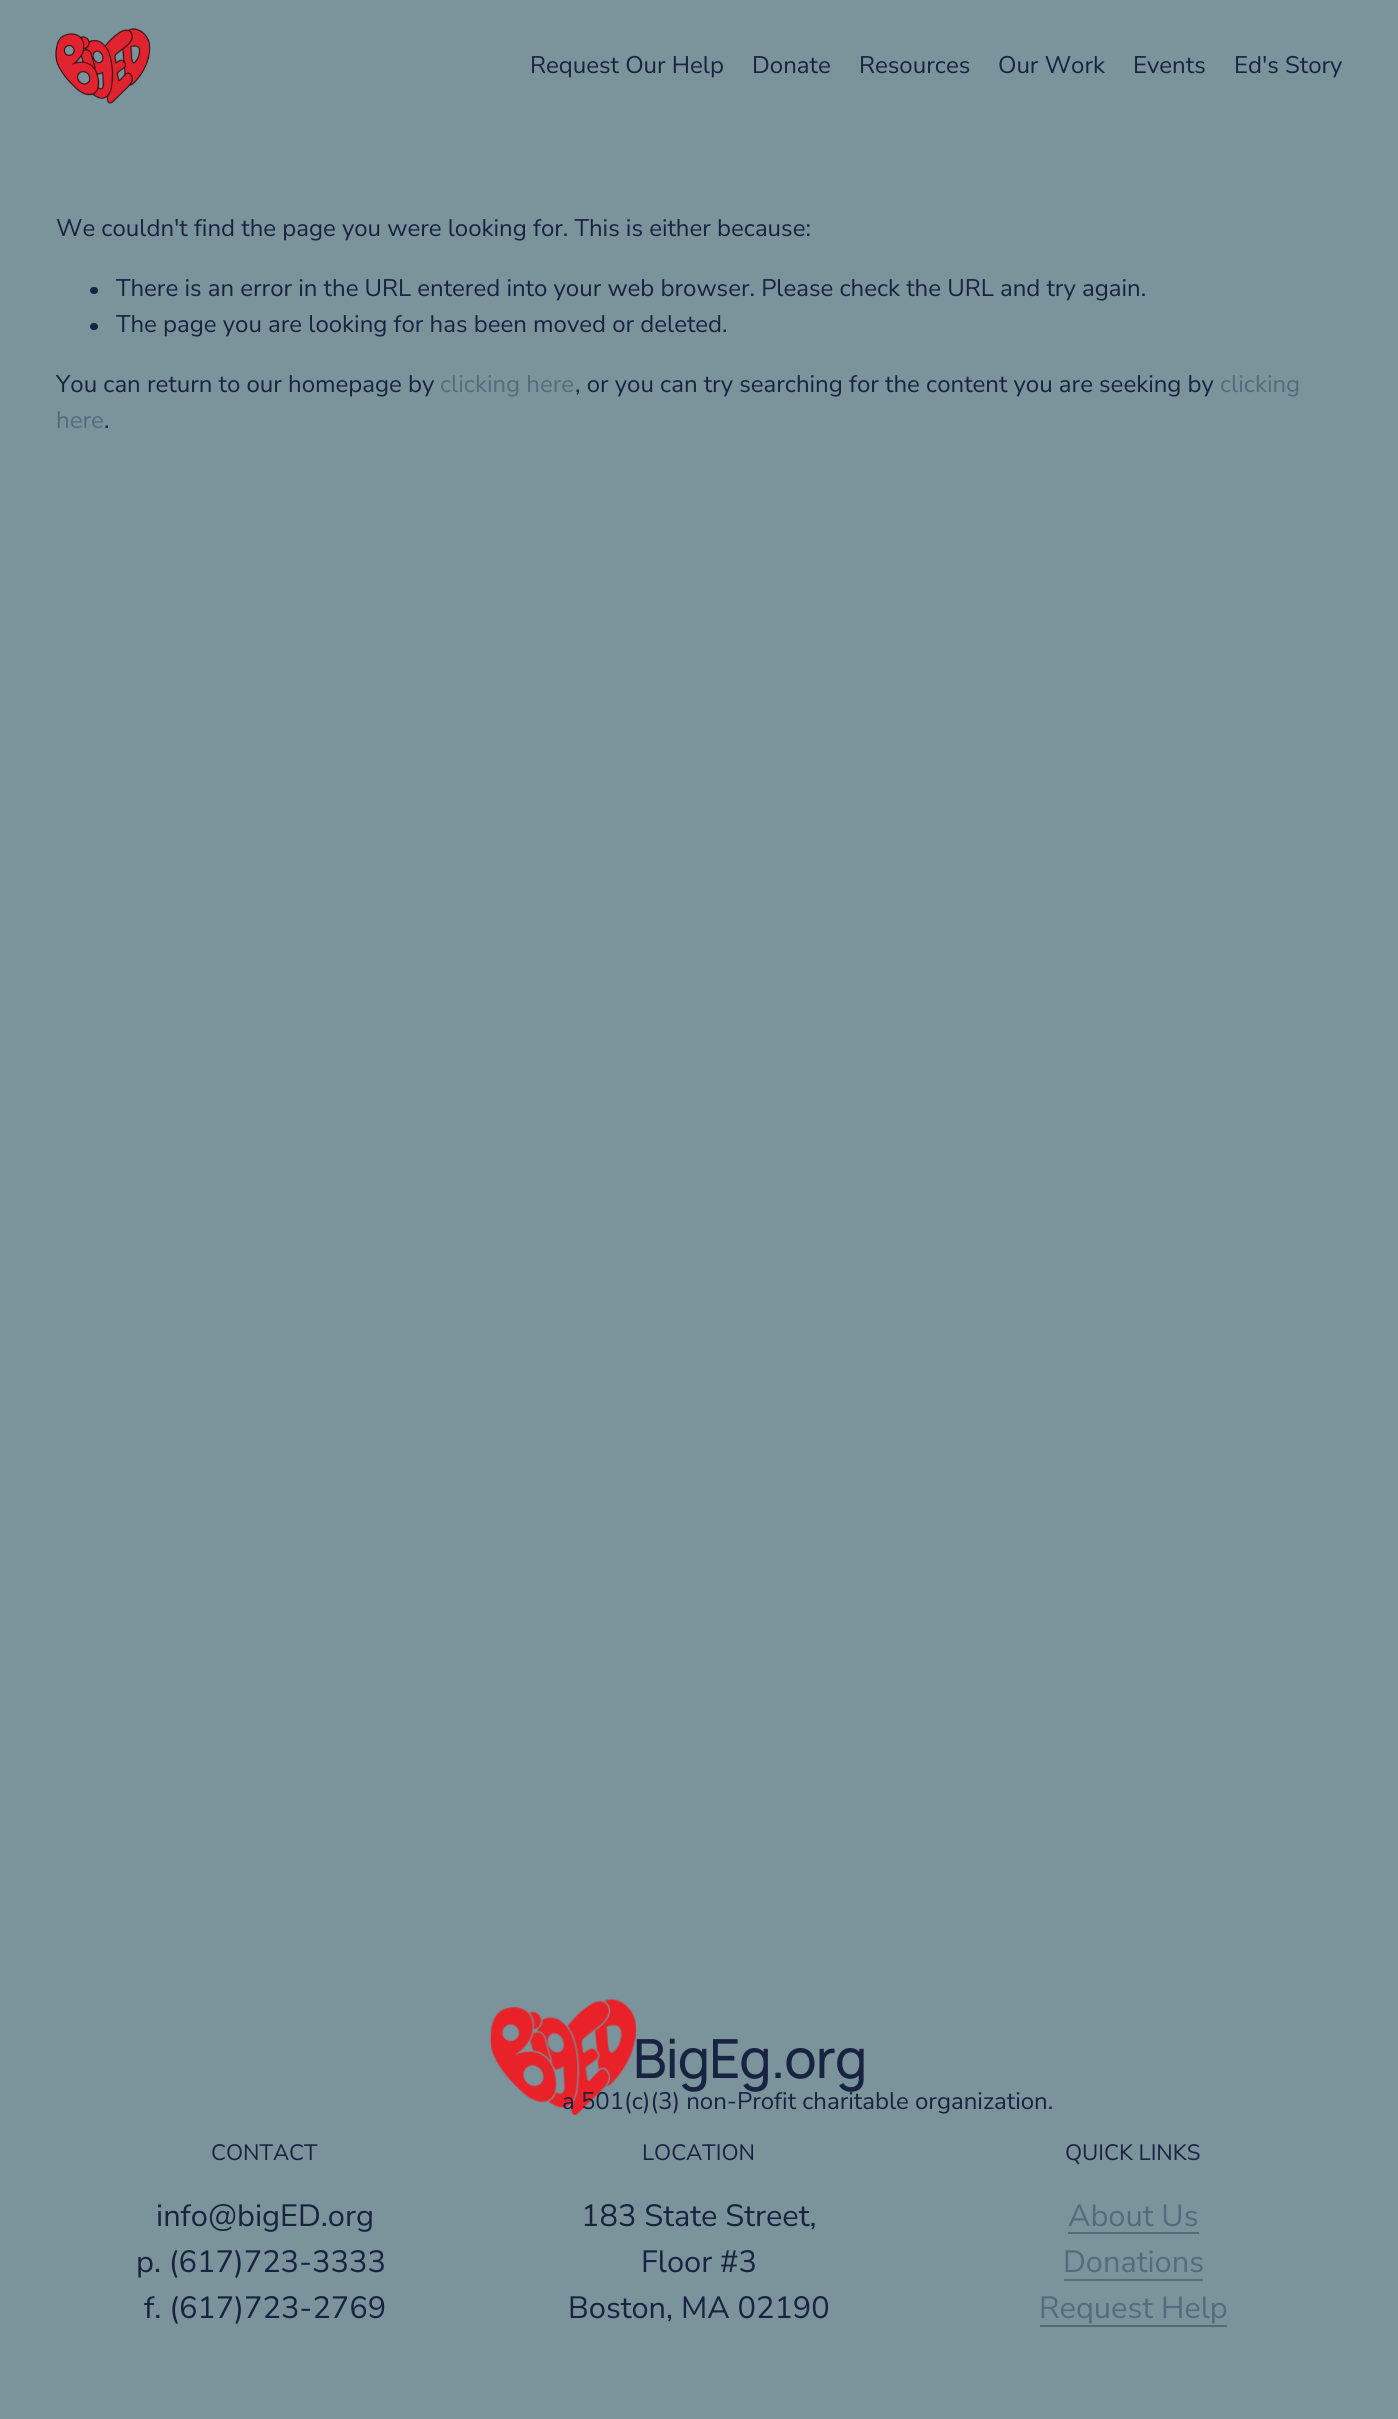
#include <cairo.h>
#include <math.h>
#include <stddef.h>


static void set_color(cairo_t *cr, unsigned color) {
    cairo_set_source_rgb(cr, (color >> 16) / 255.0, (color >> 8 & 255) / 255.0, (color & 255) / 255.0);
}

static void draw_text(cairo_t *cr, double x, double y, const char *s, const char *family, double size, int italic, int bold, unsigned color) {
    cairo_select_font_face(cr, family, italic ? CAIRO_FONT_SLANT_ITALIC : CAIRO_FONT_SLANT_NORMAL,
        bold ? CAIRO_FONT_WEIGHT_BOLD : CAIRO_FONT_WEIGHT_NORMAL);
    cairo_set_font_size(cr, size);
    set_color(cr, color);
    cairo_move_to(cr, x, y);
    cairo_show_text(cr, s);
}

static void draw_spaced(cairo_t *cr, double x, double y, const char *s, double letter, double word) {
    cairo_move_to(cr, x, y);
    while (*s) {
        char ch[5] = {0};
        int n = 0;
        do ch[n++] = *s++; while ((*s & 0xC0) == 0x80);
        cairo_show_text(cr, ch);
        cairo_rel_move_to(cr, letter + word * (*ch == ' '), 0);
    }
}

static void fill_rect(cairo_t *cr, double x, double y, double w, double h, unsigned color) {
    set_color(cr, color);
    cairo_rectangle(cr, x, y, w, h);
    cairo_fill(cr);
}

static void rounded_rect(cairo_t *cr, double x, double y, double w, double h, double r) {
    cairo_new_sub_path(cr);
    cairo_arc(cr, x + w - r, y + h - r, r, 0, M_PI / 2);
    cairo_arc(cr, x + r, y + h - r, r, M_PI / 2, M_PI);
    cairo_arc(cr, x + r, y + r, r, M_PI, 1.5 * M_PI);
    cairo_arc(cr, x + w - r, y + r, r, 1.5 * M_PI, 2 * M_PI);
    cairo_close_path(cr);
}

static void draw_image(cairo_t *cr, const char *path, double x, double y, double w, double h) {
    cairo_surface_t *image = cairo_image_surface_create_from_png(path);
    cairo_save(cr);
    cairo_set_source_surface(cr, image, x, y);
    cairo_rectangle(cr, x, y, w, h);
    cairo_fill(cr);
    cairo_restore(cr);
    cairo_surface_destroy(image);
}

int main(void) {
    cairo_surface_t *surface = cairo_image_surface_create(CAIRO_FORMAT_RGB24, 1398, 2419);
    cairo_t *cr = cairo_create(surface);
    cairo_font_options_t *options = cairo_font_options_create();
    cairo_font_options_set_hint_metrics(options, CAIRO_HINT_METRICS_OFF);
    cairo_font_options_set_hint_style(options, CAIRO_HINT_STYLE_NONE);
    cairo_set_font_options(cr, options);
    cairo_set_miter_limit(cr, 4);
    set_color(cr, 0x7B949C);
    cairo_paint(cr);
    draw_image(cr, "assets/img1.png", 55, 28, 96, 76);
    draw_text(cr, 530, 73, "Request Our Help", "Nunito Sans", 24, 0, 0, 0x182241);
    draw_text(cr, 752, 73, "Donate", "Nunito Sans", 24, 0, 0, 0x182241);
    draw_text(cr, 859, 73, "Resources", "Nunito Sans", 24, 0, 0, 0x182241);
    draw_text(cr, 998, 73, "Our Work", "Nunito Sans", 24, 0, 0, 0x182241);
    draw_text(cr, 1133, 73, "Events", "Nunito Sans", 24, 0, 0, 0x182241);
    draw_text(cr, 1234, 73, "Ed's Story", "Nunito Sans", 24, 0, 0, 0x182241);
    draw_text(cr, 56, 236, "We couldn't find the page you were looking for. This is either because:", "Nunito Sans", 24, 0, 0, 0x182241);
    rounded_rect(cr, 90, 287, 8, 7, 3.5);
    cairo_fill(cr);
    draw_text(cr, 116, 296, "There is an error in the URL entered into your web browser. Please check the URL and try again.", "Nunito Sans", 24, 0, 0, 0x182241);
    rounded_rect(cr, 90, 323, 8, 7, 3.5);
    cairo_fill(cr);
    draw_text(cr, 116, 332, "The page you are looking for has been moved or deleted.", "Nunito Sans", 24, 0, 0, 0x182241);
    draw_text(cr, 56, 392, "You can return to our homepage by", "Nunito Sans", 24, 0, 0, 0x182241);
    draw_text(cr, 440, 392, "clicking here", "Nunito Sans", 24, 0, 0, 0x536C7C);
    draw_text(cr, 575, 392, ", or you can try searching for the content you are seeking by", "Nunito Sans", 24, 0, 0, 0x182241);
    draw_text(cr, 1220, 392, "clicking", "Nunito Sans", 24, 0, 0, 0x536C7C);
    draw_text(cr, 56, 428, "here", "Nunito Sans", 24, 0, 0, 0x536C7C);
    draw_text(cr, 104, 428, ".", "Nunito Sans", 24, 0, 0, 0x182241);
    draw_image(cr, "assets/img2.png", 490, 1999, 146, 116);
    cairo_select_font_face(cr, "Manrope Medium", CAIRO_FONT_SLANT_NORMAL, CAIRO_FONT_WEIGHT_NORMAL);
    cairo_set_font_size(cr, 54);
    draw_spaced(cr, 633, 2078, "BigEg.org", -1, 0);
    draw_text(cr, 562, 2109, "a 501(c)(3) non-Profit charitable organization.", "Nunito Sans", 24, 0, 0, 0x182241);
    draw_text(cr, 211, 2160, "CONTACT", "Nunito Sans", 22.25, 0, 0, 0x182241);
    draw_text(cr, 156, 2226, "info@bigED.org", "Nunito Sans", 30.75, 0, 0, 0x182241);
    draw_text(cr, 136, 2272, "p. (617)723-3333", "Nunito Sans", 30.75, 0, 0, 0x182241);
    draw_text(cr, 144, 2318, "f. (617)723-2769", "Nunito Sans", 30.75, 0, 0, 0x182241);
    draw_text(cr, 642, 2160, "LOCATION", "Nunito Sans", 22.25, 0, 0, 0x182241);
    draw_text(cr, 581, 2226, "183 State Street,", "Nunito Sans", 30.75, 0, 0, 0x182241);
    draw_text(cr, 641, 2272, "Floor #3", "Nunito Sans", 30.75, 0, 0, 0x182241);
    draw_text(cr, 568, 2318, "Boston, MA 02190", "Nunito Sans", 30.75, 0, 0, 0x182241);
    draw_text(cr, 1065, 2160, "QUICK LINKS", "Nunito Sans", 22.25, 0, 0, 0x182241);
    draw_text(cr, 1068, 2226, "About Us", "Nunito Sans", 30.75, 0, 0, 0x536C7C);
    fill_rect(cr, 1068, 2232, 131, 2, 0x536C7C);
    draw_text(cr, 1063, 2272, "Donations", "Nunito Sans", 30.75, 0, 0, 0x536C7C);
    fill_rect(cr, 1064, 2279, 139, 2, 0x536C7C);
    draw_text(cr, 1039, 2318, "Request Help", "Nunito Sans", 30.75, 0, 0, 0x536C7C);
    fill_rect(cr, 1040, 2325, 187, 2, 0x536C7C);
    cairo_surface_write_to_png(surface, "output.png");
    cairo_font_options_destroy(options);
    cairo_destroy(cr);
    cairo_surface_destroy(surface);
    return 0;
}
